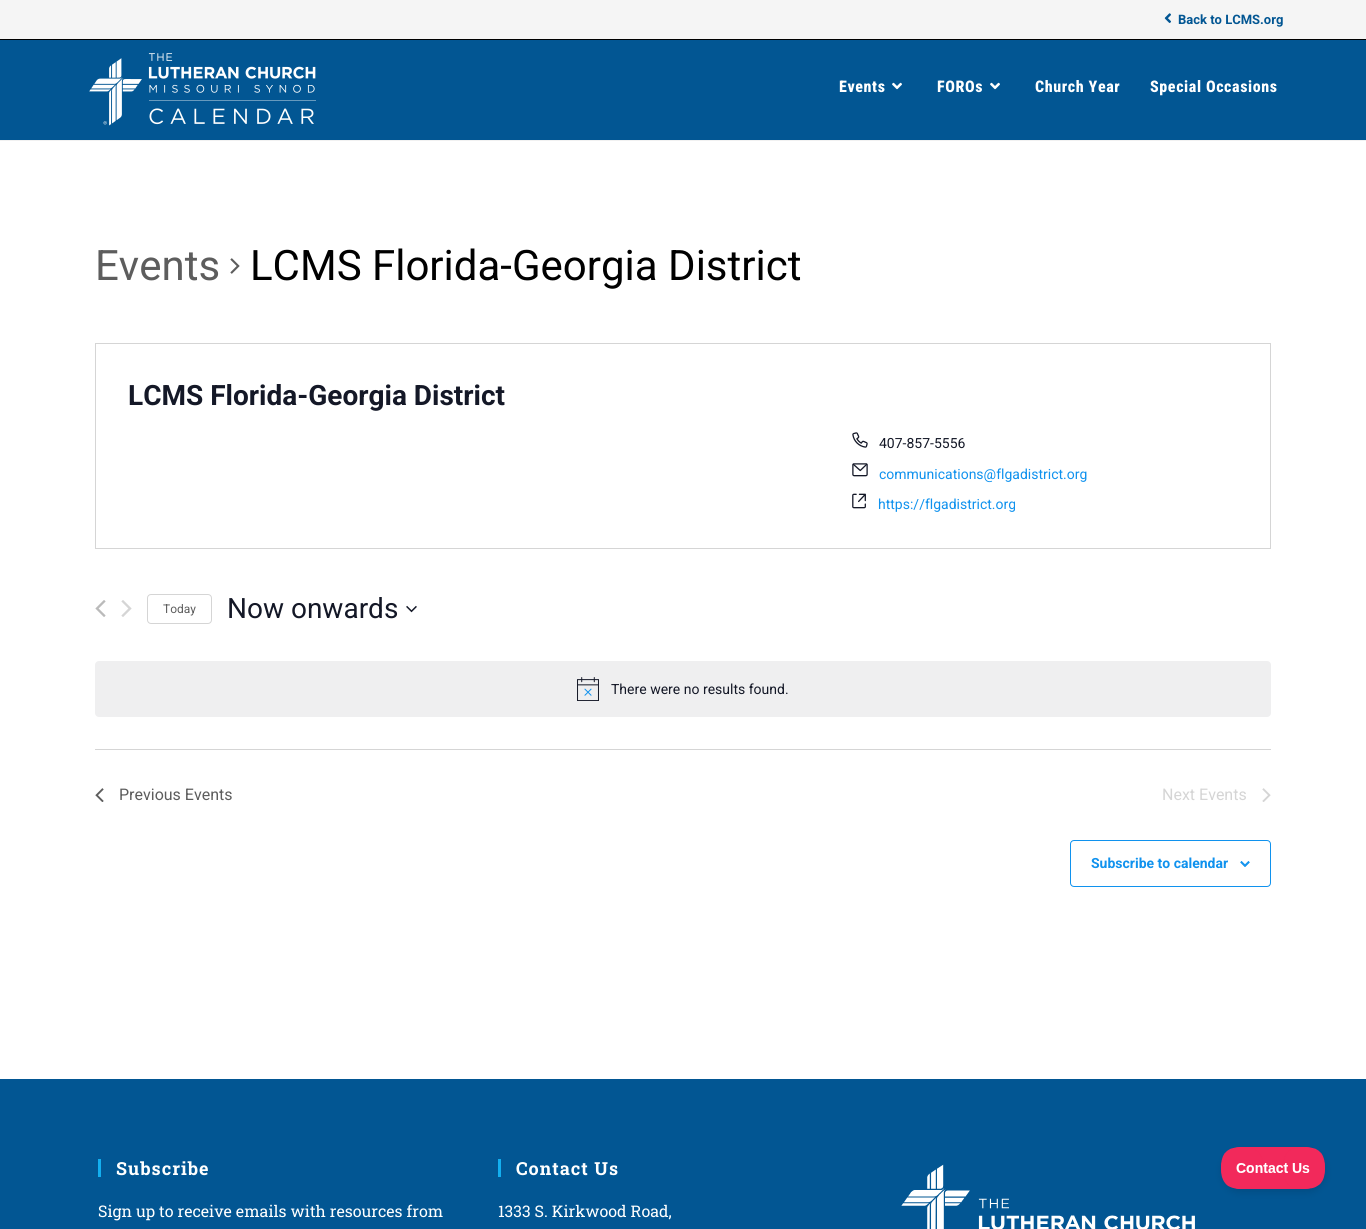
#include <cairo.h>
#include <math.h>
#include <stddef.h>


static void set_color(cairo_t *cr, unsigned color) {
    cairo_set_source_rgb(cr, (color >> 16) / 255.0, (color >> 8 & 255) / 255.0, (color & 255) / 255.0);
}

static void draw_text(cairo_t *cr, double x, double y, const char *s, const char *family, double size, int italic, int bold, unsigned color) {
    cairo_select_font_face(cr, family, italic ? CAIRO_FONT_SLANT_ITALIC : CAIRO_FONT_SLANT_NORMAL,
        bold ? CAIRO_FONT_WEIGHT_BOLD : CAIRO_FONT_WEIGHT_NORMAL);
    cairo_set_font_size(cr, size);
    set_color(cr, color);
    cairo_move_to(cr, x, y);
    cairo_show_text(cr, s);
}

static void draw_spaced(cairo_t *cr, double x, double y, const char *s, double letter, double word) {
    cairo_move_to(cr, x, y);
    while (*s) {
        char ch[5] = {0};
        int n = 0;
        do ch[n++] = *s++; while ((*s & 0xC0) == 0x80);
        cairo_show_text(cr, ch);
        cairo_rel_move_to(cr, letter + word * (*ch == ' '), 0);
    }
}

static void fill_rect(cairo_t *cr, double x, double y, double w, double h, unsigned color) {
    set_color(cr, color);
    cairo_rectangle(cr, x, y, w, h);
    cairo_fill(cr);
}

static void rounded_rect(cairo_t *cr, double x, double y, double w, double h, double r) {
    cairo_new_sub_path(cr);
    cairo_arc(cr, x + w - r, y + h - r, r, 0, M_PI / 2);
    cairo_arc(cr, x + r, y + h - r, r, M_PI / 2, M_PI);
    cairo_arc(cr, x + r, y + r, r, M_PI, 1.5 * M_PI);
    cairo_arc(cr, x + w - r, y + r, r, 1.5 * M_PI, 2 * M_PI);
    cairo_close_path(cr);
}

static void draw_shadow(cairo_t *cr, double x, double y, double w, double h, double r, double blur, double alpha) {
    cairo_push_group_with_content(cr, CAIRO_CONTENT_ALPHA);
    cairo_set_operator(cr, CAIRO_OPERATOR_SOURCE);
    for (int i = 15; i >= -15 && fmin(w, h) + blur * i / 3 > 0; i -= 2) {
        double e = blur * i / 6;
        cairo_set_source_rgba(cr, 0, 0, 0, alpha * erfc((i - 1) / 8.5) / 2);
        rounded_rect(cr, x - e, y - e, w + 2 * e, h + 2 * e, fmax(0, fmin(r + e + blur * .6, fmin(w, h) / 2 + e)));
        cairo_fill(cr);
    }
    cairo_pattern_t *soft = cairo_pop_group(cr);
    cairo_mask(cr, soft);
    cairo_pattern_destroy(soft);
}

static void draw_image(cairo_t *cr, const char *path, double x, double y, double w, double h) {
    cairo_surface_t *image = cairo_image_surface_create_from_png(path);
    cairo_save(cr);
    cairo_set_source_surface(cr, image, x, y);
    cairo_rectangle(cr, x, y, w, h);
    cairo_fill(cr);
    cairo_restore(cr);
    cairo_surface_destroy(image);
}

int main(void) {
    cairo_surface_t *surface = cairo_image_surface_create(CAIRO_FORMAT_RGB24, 1366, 1229);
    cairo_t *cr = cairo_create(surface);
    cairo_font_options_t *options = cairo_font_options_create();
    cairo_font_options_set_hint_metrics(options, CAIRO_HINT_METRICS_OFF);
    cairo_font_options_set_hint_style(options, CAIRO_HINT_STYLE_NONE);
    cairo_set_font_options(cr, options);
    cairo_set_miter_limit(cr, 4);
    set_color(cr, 0xFFFFFF);
    cairo_paint(cr);
    fill_rect(cr, 0, 0, 1366, 39, 0xF5F5F5);
    fill_rect(cr, 0, 39, 1366, 1, 0x000000);
    draw_image(cr, "assets/img1.png", 1164, 13, 7, 10);
    draw_text(cr, 1178, 24, "Back to LCMS.org", "Roboto", 13, 0, 1, 0x025693);
    fill_rect(cr, 0, 40, 1366, 100, 0x025693);
    fill_rect(cr, 0, 140, 1366, 1, 0xF1F1F1);
    draw_image(cr, "assets/img2.png", 89, 53, 227, 73);
    cairo_select_font_face(cr, "Roboto Condensed ExtraBold", CAIRO_FONT_SLANT_NORMAL, CAIRO_FONT_WEIGHT_NORMAL);
    cairo_set_font_size(cr, 16);
    set_color(cr, 0xFFFFFF);
    draw_spaced(cr, 839, 92, "Events", 0.6, 0);
    draw_image(cr, "assets/img3.png", 892, 82, 10, 8);
    draw_spaced(cr, 937, 92, "FOROs", 0.6, 0);
    draw_image(cr, "assets/img3.png", 990, 82, 10, 8);
    draw_spaced(cr, 1035, 92, "Church Year", 0.6, 0);
    draw_spaced(cr, 1150, 92, "Special Occasions", 0.6, 0);
    draw_text(cr, 95, 280, "Events", "Roboto", 42, 0, 0, 0x5D5D5D);
    draw_image(cr, "assets/img4.png", 230, 258, 10, 16);
    draw_text(cr, 250, 280, "LCMS Florida-Georgia District", "Roboto", 42, 0, 0, 0x000000);
    cairo_rectangle(cr, 95.5, 343.5, 1175, 205);
    set_color(cr, 0xD5D5D5);
    cairo_set_line_width(cr, 1);
    cairo_stroke(cr);
    draw_text(cr, 128, 405, "LCMS Florida-Georgia District", "Roboto", 28, 0, 1, 0x141827);
    draw_image(cr, "assets/img5.png", 852, 432, 16, 16);
    draw_text(cr, 879, 448, "407-857-5556", "Roboto", 14, 0, 0, 0x141827);
    draw_image(cr, "assets/img6.png", 852, 463, 16, 14);
    draw_text(cr, 879, 479, "communications@flgadistrict.org", "Roboto", 14, 0, 0, 0x1092EE);
    draw_image(cr, "assets/img7.png", 852, 493, 14, 16);
    draw_text(cr, 878, 509, "https://flgadistrict.org", "Roboto", 14, 0, 0, 0x1092EE);
    draw_image(cr, "assets/img8.png", 95, 600, 11, 17);
    draw_image(cr, "assets/img9.png", 121, 600, 11, 17);
    rounded_rect(cr, 147.5, 594.5, 64, 29, 3.5);
    set_color(cr, 0xD5D5D5);
    cairo_stroke(cr);
    draw_text(cr, 163, 613, "Today", "Roboto", 12, 0, 0, 0x5D5D5D);
    draw_text(cr, 227, 618, "Now onwards", "Roboto", 28, 0, 0, 0x141827);
    draw_image(cr, "assets/img10.png", 406, 605, 11, 8);
    set_color(cr, 0xEFEFF0);
    rounded_rect(cr, 95, 661, 1176, 56, 4);
    cairo_fill(cr);
    draw_image(cr, "assets/img11.png", 577, 677, 22, 24);
    draw_text(cr, 611, 694, "There were no results found.", "Roboto", 14, 0, 0, 0x141827);
    fill_rect(cr, 95, 749, 1176, 1, 0xD5D5D5);
    draw_image(cr, "assets/img12.png", 95, 788, 9, 14);
    draw_text(cr, 119, 800, "Previous Events", "Roboto", 16, 0, 0, 0x5D5D5D);
    draw_text(cr, 1162, 800, "Next Events", "Roboto", 16, 0, 0, 0xD5D5D5);
    draw_image(cr, "assets/img13.png", 1262, 788, 9, 14);
    rounded_rect(cr, 1070.5, 840.5, 200, 46, 3.5);
    set_color(cr, 0x1092EE);
    cairo_stroke(cr);
    draw_text(cr, 1091, 868, "Subscribe to calendar", "Roboto", 14, 0, 1, 0x1092EE);
    draw_image(cr, "assets/img14.png", 1240, 861, 10, 6);
    fill_rect(cr, 0, 1079, 1366, 150, 0x025693);
    fill_rect(cr, 98, 1159, 3, 18, 0x13AFF0);
    cairo_select_font_face(cr, "Roboto Slab", CAIRO_FONT_SLANT_NORMAL, CAIRO_FONT_WEIGHT_BOLD);
    cairo_set_font_size(cr, 18);
    set_color(cr, 0xFFFFFF);
    draw_spaced(cr, 116, 1175, "Subscribe", 1, 0);
    draw_text(cr, 98, 1217, "Sign up to receive emails with resources from", "Roboto Slab", 16, 0, 0, 0xFFFFFF);
    fill_rect(cr, 498, 1159, 3, 18, 0x13AFF0);
    cairo_select_font_face(cr, "Roboto Slab", CAIRO_FONT_SLANT_NORMAL, CAIRO_FONT_WEIGHT_BOLD);
    cairo_set_font_size(cr, 18);
    set_color(cr, 0xFFFFFF);
    draw_spaced(cr, 516, 1175, "Contact Us", 1, 0);
    draw_text(cr, 498, 1217, "1333 S. Kirkwood Road,", "Roboto Slab", 16, 0, 0, 0xFFFFFF);
    draw_image(cr, "assets/img15.png", 901, 1164, 294, 65);
    set_color(cr, 0x000000);
    draw_shadow(cr, 1221, 1151, 105, 42, 21, 3.5, 0.1);
    draw_image(cr, "assets/img16.png", 1221, 1147, 104, 42);
    cairo_surface_write_to_png(surface, "output.png");
    cairo_font_options_destroy(options);
    cairo_destroy(cr);
    cairo_surface_destroy(surface);
    return 0;
}
